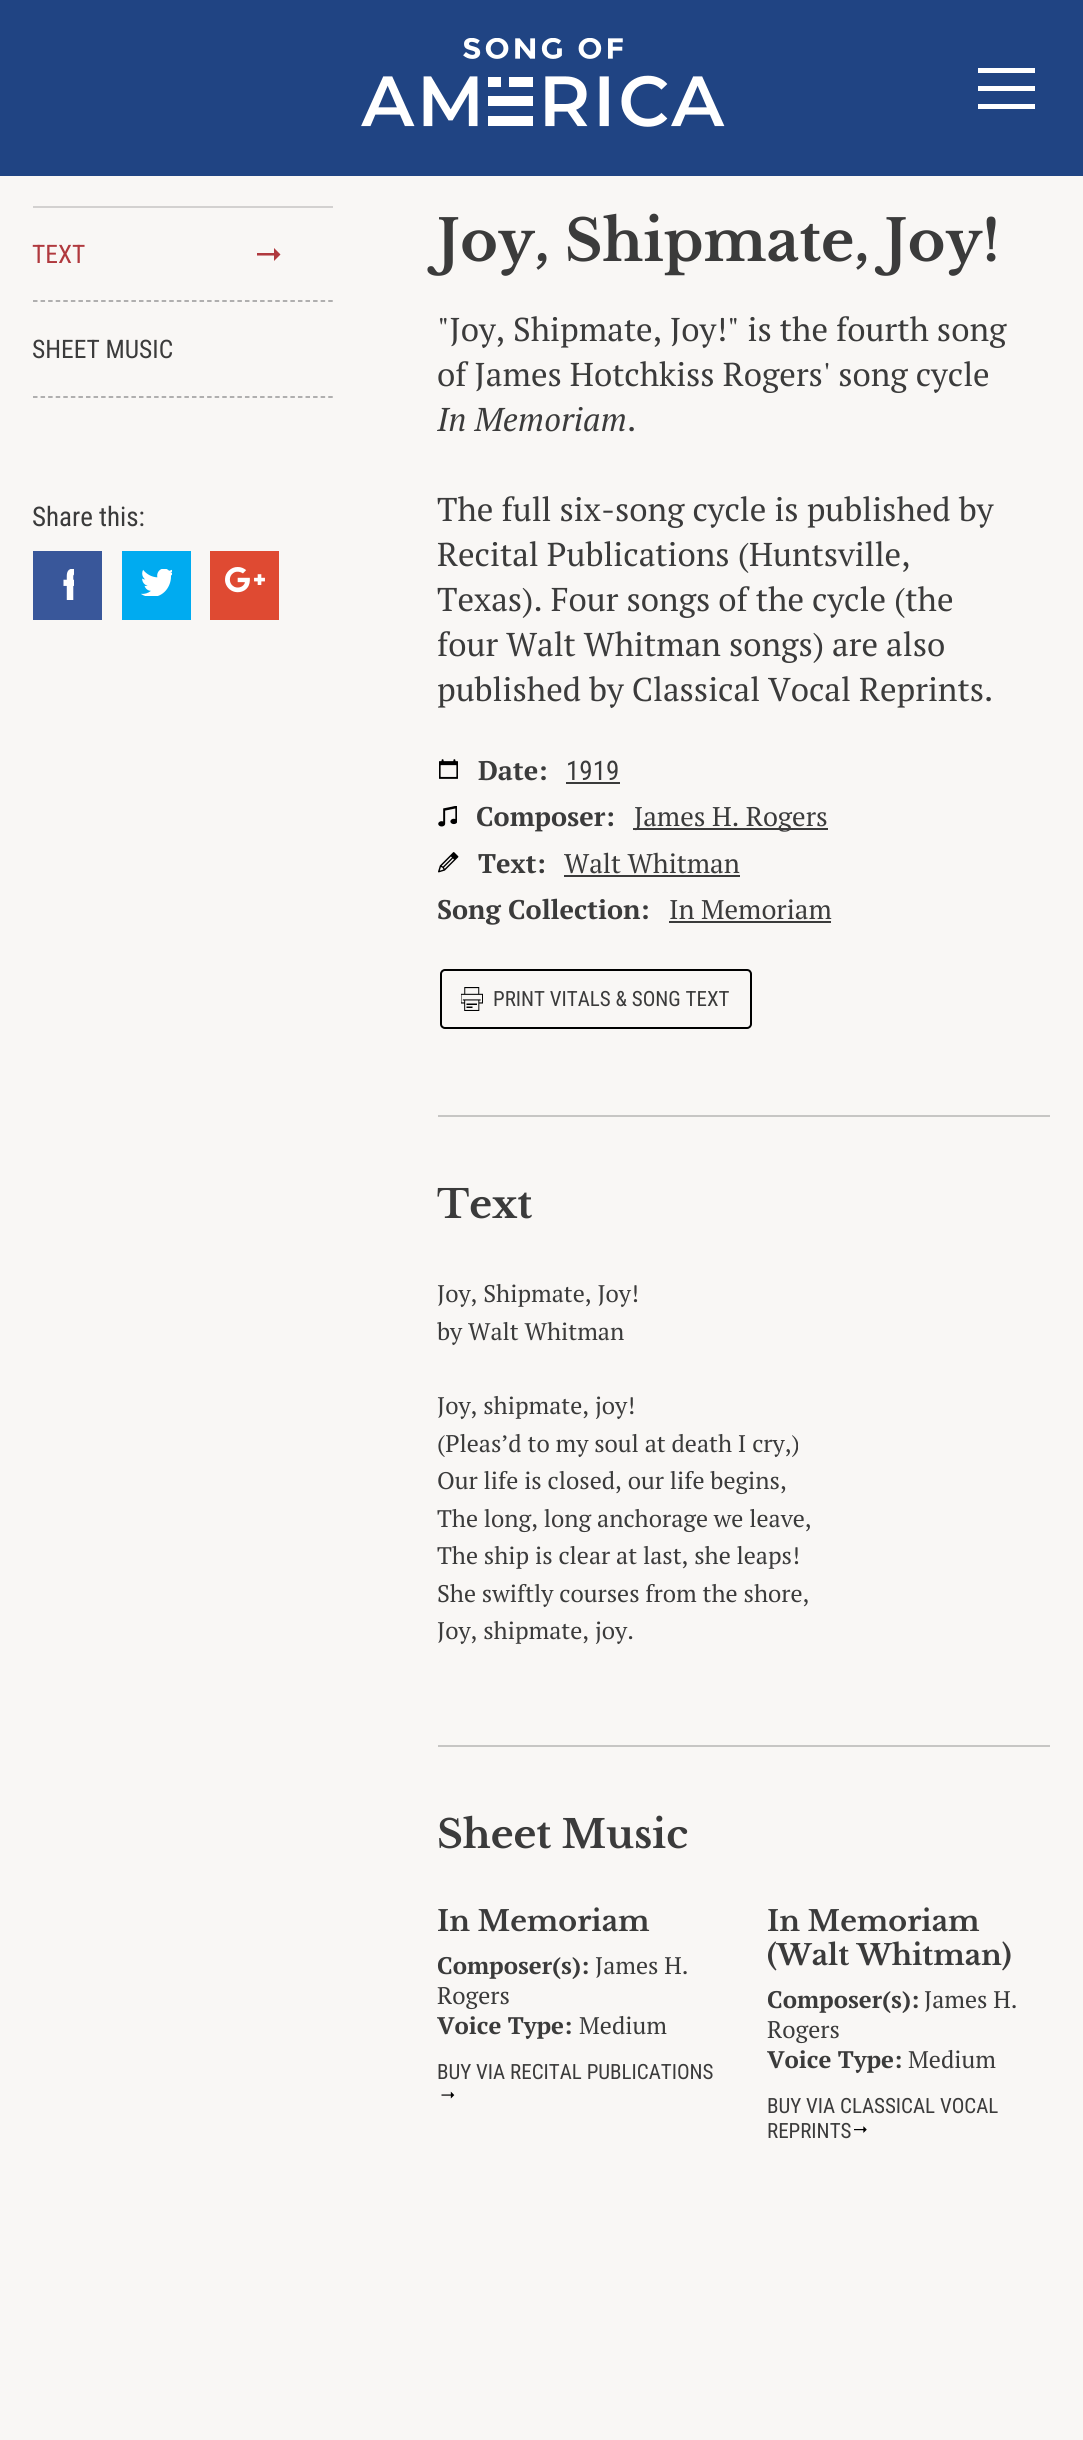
#include <cairo.h>
#include <math.h>
#include <stddef.h>


static void set_color(cairo_t *cr, unsigned color) {
    cairo_set_source_rgb(cr, (color >> 16) / 255.0, (color >> 8 & 255) / 255.0, (color & 255) / 255.0);
}

static void draw_text(cairo_t *cr, double x, double y, const char *s, const char *family, double size, int italic, int bold, unsigned color) {
    cairo_select_font_face(cr, family, italic ? CAIRO_FONT_SLANT_ITALIC : CAIRO_FONT_SLANT_NORMAL,
        bold ? CAIRO_FONT_WEIGHT_BOLD : CAIRO_FONT_WEIGHT_NORMAL);
    cairo_set_font_size(cr, size);
    set_color(cr, color);
    cairo_move_to(cr, x, y);
    cairo_show_text(cr, s);
}

static void fill_rect(cairo_t *cr, double x, double y, double w, double h, unsigned color) {
    set_color(cr, color);
    cairo_rectangle(cr, x, y, w, h);
    cairo_fill(cr);
}

static void rounded_rect(cairo_t *cr, double x, double y, double w, double h, double r) {
    cairo_new_sub_path(cr);
    cairo_arc(cr, x + w - r, y + h - r, r, 0, M_PI / 2);
    cairo_arc(cr, x + r, y + h - r, r, M_PI / 2, M_PI);
    cairo_arc(cr, x + r, y + r, r, M_PI, 1.5 * M_PI);
    cairo_arc(cr, x + w - r, y + r, r, 1.5 * M_PI, 2 * M_PI);
    cairo_close_path(cr);
}

static void draw_image(cairo_t *cr, const char *path, double x, double y, double w, double h) {
    cairo_surface_t *image = cairo_image_surface_create_from_png(path);
    cairo_save(cr);
    cairo_set_source_surface(cr, image, x, y);
    cairo_rectangle(cr, x, y, w, h);
    cairo_fill(cr);
    cairo_restore(cr);
    cairo_surface_destroy(image);
}

int main(void) {
    cairo_surface_t *surface = cairo_image_surface_create(CAIRO_FORMAT_RGB24, 1083, 2440);
    cairo_t *cr = cairo_create(surface);
    cairo_font_options_t *options = cairo_font_options_create();
    cairo_font_options_set_hint_metrics(options, CAIRO_HINT_METRICS_OFF);
    cairo_font_options_set_hint_style(options, CAIRO_HINT_STYLE_NONE);
    cairo_set_font_options(cr, options);
    cairo_set_miter_limit(cr, 4);
    set_color(cr, 0xF9F7F5);
    cairo_paint(cr);
    fill_rect(cr, 0, 0, 1083, 176, 0x204483);
    draw_image(cr, "assets/img1.png", 361, 38, 364, 89);
    fill_rect(cr, 978, 86, 57, 5, 0xFFFFFF);
    fill_rect(cr, 978, 68, 57, 5, 0xFFFFFF);
    fill_rect(cr, 978, 104, 57, 5, 0xFFFFFF);
    fill_rect(cr, 33, 206, 300, 2, 0xD3D1D0);
    cairo_new_path(cr);
    cairo_move_to(cr, 33, 301);
    cairo_line_to(cr, 333, 301);
    set_color(cr, 0x979797);
    cairo_set_line_width(cr, 1.5);
    cairo_set_dash(cr, (double[]){4.5, 3.07}, 2, 0);
    cairo_stroke(cr);
    draw_text(cr, 32, 263, "TEXT", "Roboto Condensed", 25.5, 0, 0, 0xB0393E);
    cairo_save(cr);
    cairo_rectangle(cr, 257, 246, 24, 15);
    cairo_clip(cr);
    cairo_set_fill_rule(cr, CAIRO_FILL_RULE_EVEN_ODD);
    cairo_new_path(cr);
    cairo_move_to(cr, 280.5, 254.5);
    cairo_line_to(cr, 274, 248);
    cairo_line_to(cr, 274, 253);
    cairo_line_to(cr, 256.5, 253);
    cairo_line_to(cr, 256.5, 255.5);
    cairo_line_to(cr, 274, 255.5);
    cairo_line_to(cr, 274, 261);
    cairo_close_path(cr);
    cairo_fill(cr);
    cairo_restore(cr);
    cairo_new_path(cr);
    cairo_move_to(cr, 33, 397);
    cairo_line_to(cr, 333, 397);
    set_color(cr, 0x979797);
    cairo_stroke(cr);
    draw_text(cr, 32, 358, "SHEET MUSIC", "Roboto Condensed", 25.5, 0, 0, 0x3B3B3B);
    draw_text(cr, 32, 526, "Share this:", "Roboto Condensed", 27, 0, 0, 0x3B3B3B);
    fill_rect(cr, 33, 551, 69, 69, 0x39579A);
    draw_image(cr, "assets/img2.png", 63, 569, 11, 31);
    fill_rect(cr, 122, 551, 69, 69, 0x00ABF0);
    draw_image(cr, "assets/img3.png", 141, 569, 31, 27);
    fill_rect(cr, 210, 551, 69, 69, 0xDF4A32);
    draw_image(cr, "assets/img4.png", 225, 567, 40, 26);
    draw_text(cr, 437, 261, "Joy, Shipmate, Joy!", "Libre Baskerville", 57, 0, 1, 0x3B3B3B);
    draw_text(cr, 437, 341, "\"Joy, Shipmate, Joy!\" is the fourth song", "PT Serif", 33, 0, 0, 0x3B3B3B);
    draw_text(cr, 437, 386, "of James Hotchkiss Rogers' song cycle", "PT Serif", 33, 0, 0, 0x3B3B3B);
    draw_text(cr, 437, 431, "In Memoriam", "PT Serif", 33, 1, 0, 0x3B3B3B);
    draw_text(cr, 627, 431, ".", "PT Serif", 33, 0, 0, 0x3B3B3B);
    draw_text(cr, 437, 521, "The full six-song cycle is published by", "PT Serif", 33, 0, 0, 0x3B3B3B);
    draw_text(cr, 437, 566, "Recital Publications (Huntsville,", "PT Serif", 33, 0, 0, 0x3B3B3B);
    draw_text(cr, 437, 611, "Texas). Four songs of the cycle (the", "PT Serif", 33, 0, 0, 0x3B3B3B);
    draw_text(cr, 437, 656, "four Walt Whitman songs) are also", "PT Serif", 33, 0, 0, 0x3B3B3B);
    draw_text(cr, 437, 701, "published by Classical Vocal Reprints.", "PT Serif", 33, 0, 0, 0x3B3B3B);
    draw_image(cr, "assets/img5.png", 439, 759, 19, 20);
    draw_text(cr, 478, 780, "Date:", "PT Serif", 27, 0, 1, 0x3B3B3B);
    draw_text(cr, 566, 780, "1919", "Roboto Condensed", 27, 0, 0, 0x3B3B3B);
    fill_rect(cr, 566, 782, 54, 2, 0x3B3B3B);
    draw_image(cr, "assets/img6.png", 438, 806, 19, 21);
    draw_text(cr, 476, 826, "Composer:", "PT Serif", 27, 0, 1, 0x3B3B3B);
    fill_rect(cr, 633, 828, 195, 2, 0x3B3B3B);
    draw_text(cr, 634, 826, "James H. Rogers", "PT Serif", 27, 0, 0, 0x3B3B3B);
    draw_image(cr, "assets/img7.png", 438, 852, 21, 21);
    draw_text(cr, 478, 873, "Text:", "PT Serif", 27, 0, 1, 0x3B3B3B);
    draw_text(cr, 564, 873, "Walt Whitman", "PT Serif", 27, 0, 0, 0x3B3B3B);
    fill_rect(cr, 564, 875, 176, 2, 0x3B3B3B);
    draw_text(cr, 437, 919, "Song Collection:", "PT Serif", 27, 0, 1, 0x3B3B3B);
    draw_text(cr, 669, 919, "In Memoriam", "PT Serif", 27, 0, 0, 0x3B3B3B);
    fill_rect(cr, 669, 921, 162, 2, 0x3B3B3B);
    rounded_rect(cr, 441, 970, 310, 58, 4);
    set_color(cr, 0x000000);
    cairo_set_line_width(cr, 2);
    cairo_set_dash(cr, NULL, 0, 0);
    cairo_stroke(cr);
    draw_image(cr, "assets/img8.png", 461, 987, 22, 24);
    draw_text(cr, 493, 1006, "PRINT VITALS & SONG TEXT", "Roboto Condensed", 21, 0, 0, 0x3B3B3B);
    fill_rect(cr, 438, 1115, 612, 2, 0xC7C6C4);
    draw_text(cr, 437, 1218, "Text", "Libre Baskerville", 39, 0, 1, 0x3B3B3B);
    draw_text(cr, 437, 1302, "Joy, Shipmate, Joy!", "PT Serif", 24, 0, 0, 0x3B3B3B);
    draw_text(cr, 437, 1340, "by Walt Whitman", "PT Serif", 24, 0, 0, 0x3B3B3B);
    draw_text(cr, 437, 1414, "Joy, shipmate, joy!", "PT Serif", 24, 0, 0, 0x3B3B3B);
    draw_text(cr, 437, 1452, "(Pleas’d to my soul at death I cry,)", "PT Serif", 24, 0, 0, 0x3B3B3B);
    draw_text(cr, 437, 1489, "Our life is closed, our life begins,", "PT Serif", 24, 0, 0, 0x3B3B3B);
    draw_text(cr, 437, 1527, "The long, long anchorage we leave,", "PT Serif", 24, 0, 0, 0x3B3B3B);
    draw_text(cr, 437, 1564, "The ship is clear at last, she leaps!", "PT Serif", 24, 0, 0, 0x3B3B3B);
    draw_text(cr, 437, 1602, "She swiftly courses from the shore,", "PT Serif", 24, 0, 0, 0x3B3B3B);
    draw_text(cr, 437, 1639, "Joy, shipmate, joy.", "PT Serif", 24, 0, 0, 0x3B3B3B);
    fill_rect(cr, 438, 1745, 612, 2, 0xC7C6C4);
    draw_text(cr, 437, 1848, "Sheet Music", "Libre Baskerville", 39, 0, 1, 0x3B3B3B);
    draw_text(cr, 437, 1931, "In Memoriam", "Libre Baskerville", 28.5, 0, 1, 0x3B3B3B);
    draw_text(cr, 437, 1974, "Composer(s):", "PT Serif", 24, 0, 1, 0x3B3B3B);
    draw_text(cr, 595, 1974, "James H.", "PT Serif", 24, 0, 0, 0x3B3B3B);
    draw_text(cr, 437, 2004, "Rogers", "PT Serif", 24, 0, 0, 0x3B3B3B);
    draw_text(cr, 437, 2034, "Voice Type:", "PT Serif", 24, 0, 1, 0x3B3B3B);
    draw_text(cr, 579, 2034, "Medium", "PT Serif", 24, 0, 0, 0x3B3B3B);
    draw_text(cr, 437, 2079, "BUY VIA RECITAL PUBLICATIONS", "Roboto Condensed", 21, 0, 0, 0x3B3B3B);
    draw_image(cr, "assets/img9.png", 441, 2091, 14, 8);
    draw_text(cr, 767, 1931, "In Memoriam", "Libre Baskerville", 28.5, 0, 1, 0x3B3B3B);
    draw_text(cr, 767, 1965, "(Walt Whitman)", "Libre Baskerville", 28.5, 0, 1, 0x3B3B3B);
    draw_text(cr, 767, 2008, "Composer(s):", "PT Serif", 24, 0, 1, 0x3B3B3B);
    draw_text(cr, 924, 2008, "James H.", "PT Serif", 24, 0, 0, 0x3B3B3B);
    draw_text(cr, 767, 2038, "Rogers", "PT Serif", 24, 0, 0, 0x3B3B3B);
    draw_text(cr, 767, 2068, "Voice Type:", "PT Serif", 24, 0, 1, 0x3B3B3B);
    draw_text(cr, 908, 2068, "Medium", "PT Serif", 24, 0, 0, 0x3B3B3B);
    draw_text(cr, 767, 2113, "BUY VIA CLASSICAL VOCAL", "Roboto Condensed", 21, 0, 0, 0x3B3B3B);
    draw_text(cr, 767, 2138, "REPRINTS", "Roboto Condensed", 21, 0, 0, 0x3B3B3B);
    draw_image(cr, "assets/img10.png", 854, 2126, 13, 7);
    cairo_surface_write_to_png(surface, "output.png");
    cairo_font_options_destroy(options);
    cairo_destroy(cr);
    cairo_surface_destroy(surface);
    return 0;
}
